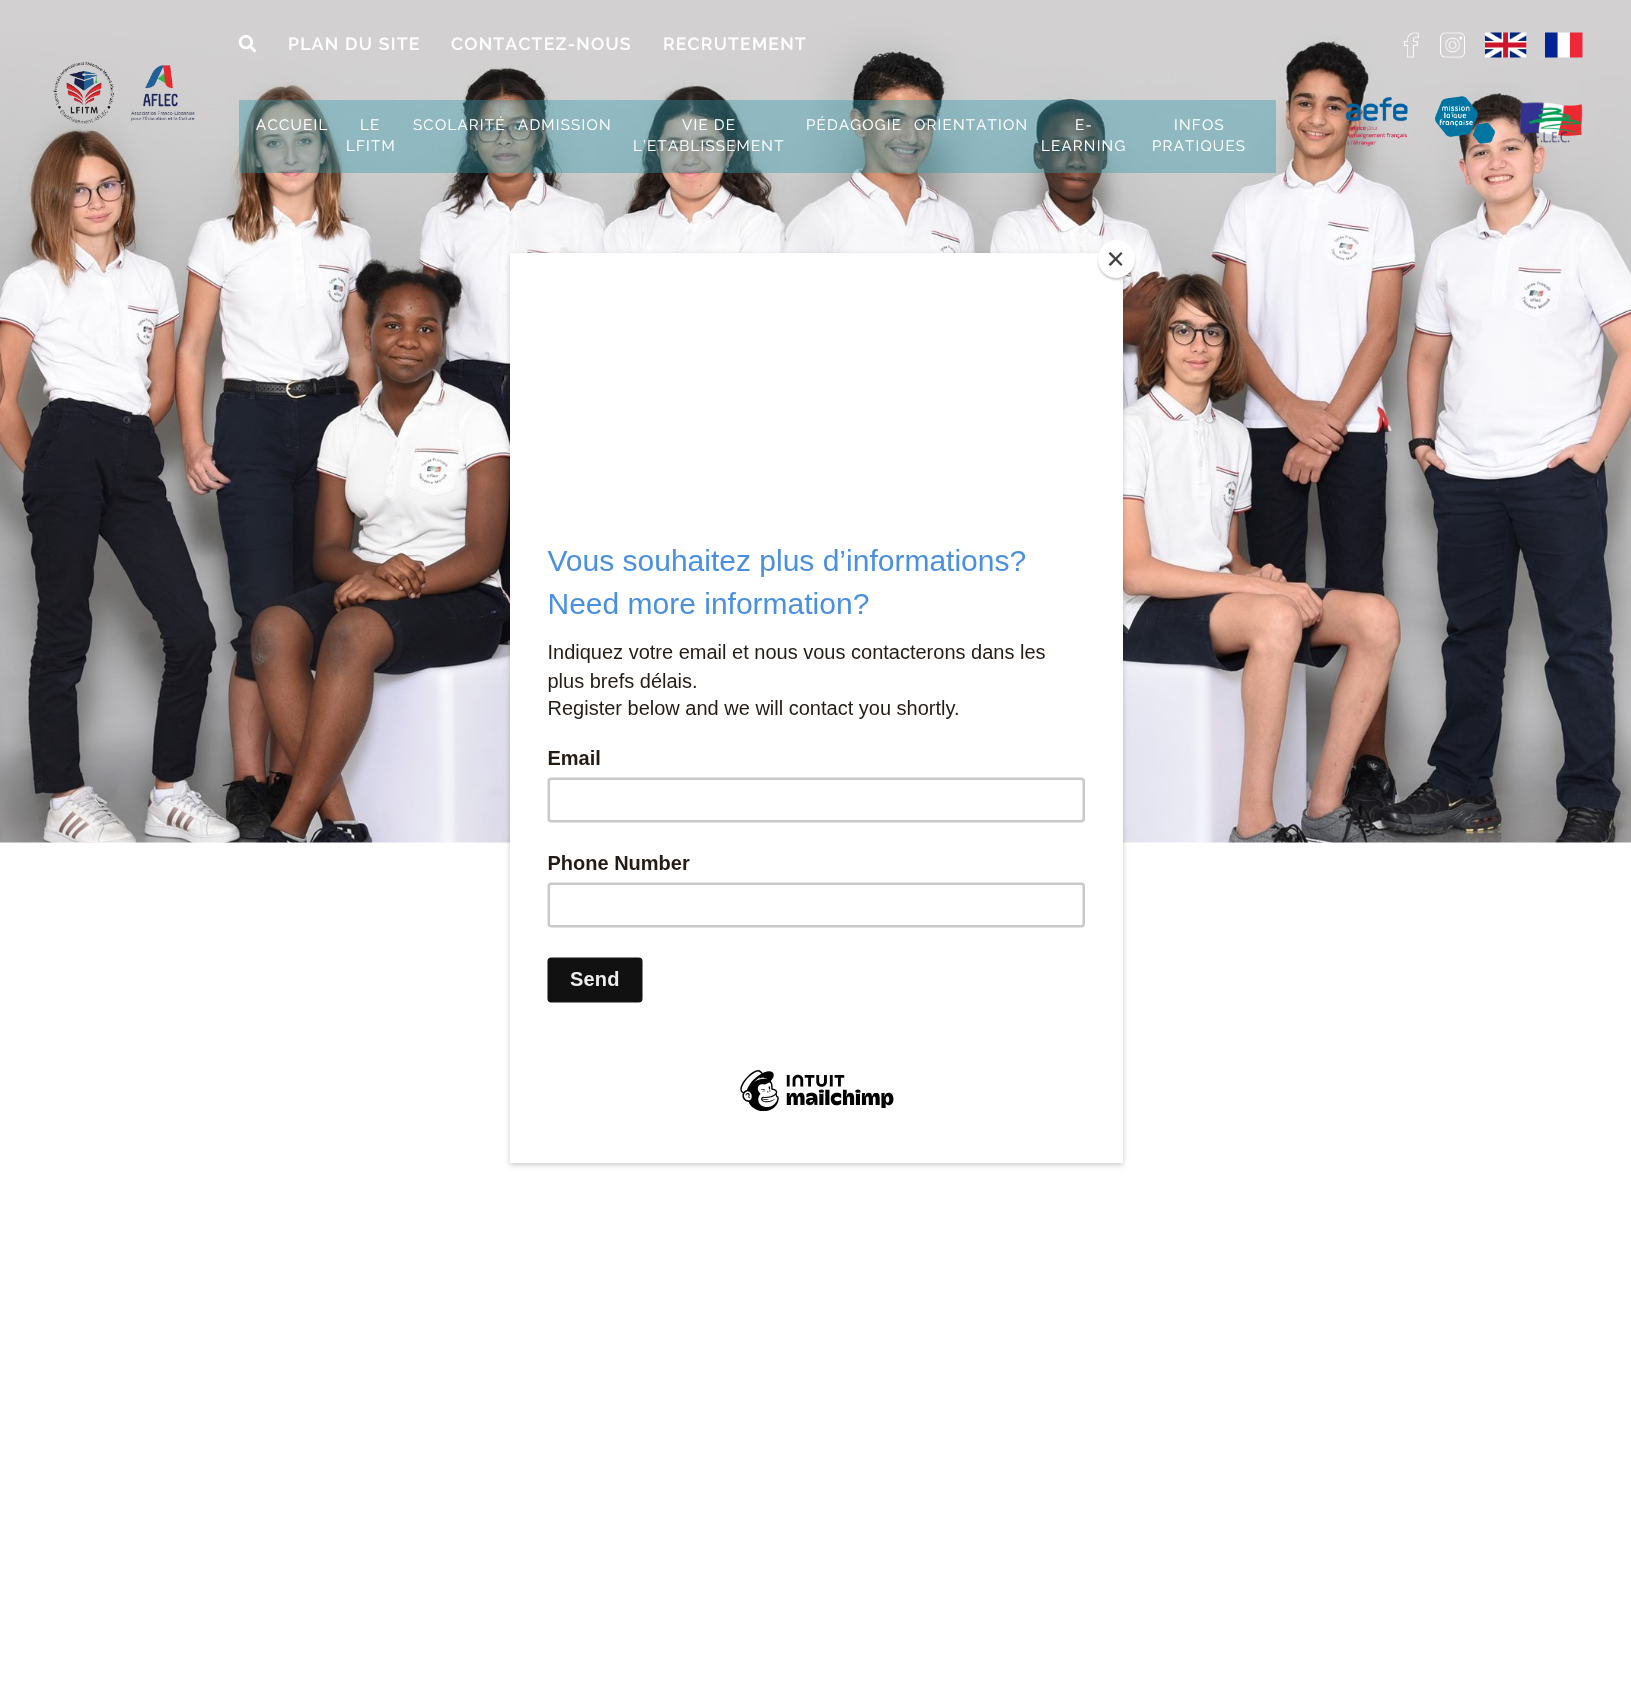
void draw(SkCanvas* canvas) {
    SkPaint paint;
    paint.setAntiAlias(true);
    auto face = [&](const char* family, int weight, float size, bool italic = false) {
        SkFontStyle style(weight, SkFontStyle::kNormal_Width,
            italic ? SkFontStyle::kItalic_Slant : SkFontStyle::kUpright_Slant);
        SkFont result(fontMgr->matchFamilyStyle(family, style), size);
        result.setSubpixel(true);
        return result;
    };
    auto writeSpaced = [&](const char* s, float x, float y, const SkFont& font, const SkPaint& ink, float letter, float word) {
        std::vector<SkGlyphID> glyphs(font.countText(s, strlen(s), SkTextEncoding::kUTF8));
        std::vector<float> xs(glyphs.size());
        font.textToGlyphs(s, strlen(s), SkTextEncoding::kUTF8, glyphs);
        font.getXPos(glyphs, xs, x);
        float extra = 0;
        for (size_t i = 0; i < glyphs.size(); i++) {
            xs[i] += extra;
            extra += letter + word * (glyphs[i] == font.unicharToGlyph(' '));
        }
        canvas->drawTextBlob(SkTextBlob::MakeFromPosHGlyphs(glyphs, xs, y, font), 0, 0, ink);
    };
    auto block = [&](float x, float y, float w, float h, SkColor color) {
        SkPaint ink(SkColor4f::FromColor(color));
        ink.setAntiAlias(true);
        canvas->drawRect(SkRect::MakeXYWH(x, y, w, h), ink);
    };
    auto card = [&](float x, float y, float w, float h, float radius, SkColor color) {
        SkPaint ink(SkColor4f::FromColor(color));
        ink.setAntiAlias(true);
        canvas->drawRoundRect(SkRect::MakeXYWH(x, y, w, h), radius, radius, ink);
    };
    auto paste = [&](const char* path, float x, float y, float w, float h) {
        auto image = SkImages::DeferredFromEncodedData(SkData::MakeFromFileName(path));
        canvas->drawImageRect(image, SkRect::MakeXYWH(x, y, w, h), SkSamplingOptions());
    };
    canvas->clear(SK_ColorWHITE);
    paste("pic1.png", 0, 0, 1631, 843);
    paste("pic2.png", 53, 61, 142, 63);
    paste("pic3.png", 238, 35, 19, 18);
    auto kFont1 = face("Raleway", 600, 17.5f);
    paint.setColor(SK_ColorWHITE);
    writeSpaced("PLAN DU SITE", 288, 50, kFont1, paint, 1.25f, 0);
    writeSpaced("CONTACTEZ-NOUS", 451, 50, kFont1, paint, 1.25f, 0);
    writeSpaced("RECRUTEMENT", 663, 50, kFont1, paint, 1.25f, 0);
    block(239, 100, 1037, 73, SkColorSetARGB(102, 47, 150, 169));
    auto kFont2 = face("Raleway", 400, 15);
    writeSpaced("ACCUEIL", 256, 130, kFont2, paint, 1.25f, 0);
    writeSpaced("LE", 360, 130, kFont2, paint, 1.25f, 0);
    writeSpaced("LFITM", 346, 151, kFont2, paint, 1.25f, 0);
    writeSpaced("SCOLARITÉ", 413, 130, kFont2, paint, 1.25f, 0);
    writeSpaced("ADMISSION", 518, 130, kFont2, paint, 1.25f, 0);
    writeSpaced("VIE DE", 682, 130, kFont2, paint, 1.25f, 0);
    writeSpaced("L’ETABLISSEMENT", 633, 151, kFont2, paint, 1.25f, 0);
    writeSpaced("PÉDAGOGIE", 806, 130, kFont2, paint, 1.25f, 0);
    writeSpaced("ORIENTATION", 914, 130, kFont2, paint, 1.25f, 0);
    writeSpaced("E-", 1075, 130, kFont2, paint, 1.25f, 0);
    writeSpaced("LEARNING", 1041, 151, kFont2, paint, 1.25f, 0);
    writeSpaced("INFOS", 1174, 130, kFont2, paint, 1.25f, 0);
    writeSpaced("PRATIQUES", 1152, 151, kFont2, paint, 1.25f, 0);
    paste("pic4.png", 1403, 32, 16, 26);
    paste("pic5.png", 1440, 32, 25, 26);
    paste("pic6.png", 1485, 32, 42, 26);
    paste("pic7.png", 1545, 32, 38, 26);
    paste("pic8.png", 1345, 97, 63, 50);
    paste("pic9.png", 1435, 96, 60, 48);
    paste("pic10.png", 1520, 102, 63, 41);
    paint.setColor(SkColorSetARGB(51, 0, 0, 0));
    paint.setMaskFilter(SkMaskFilter::MakeBlur(kNormal_SkBlurStyle, 2.5f));
    canvas->drawRect(SkRect::MakeXYWH(510, 255, 613, 910), paint);
    paint.setMaskFilter(nullptr);
    paste("pic11.png", 510, 253, 613, 910);
    paint.setMaskFilter(SkMaskFilter::MakeBlur(kNormal_SkBlurStyle, 1));
    canvas->drawRoundRect(SkRect::MakeXYWH(1098, 243, 37, 37), 18.5f, 18.5f, paint);
    paint.setMaskFilter(nullptr);
    card(1098, 240, 37, 38, 18.5f, SK_ColorWHITE);
    paint.setColor(SkColorSetRGB(65, 65, 65));
    canvas->drawPath(SkPathBuilder().moveTo(1121, 252).lineTo(1122.5f, 253.5f).lineTo(1110.5f, 266).lineTo(1108.5f, 264.5f).close().detach(), paint);
    canvas->drawPath(SkPathBuilder().moveTo(1108.5f, 253.5f).lineTo(1110.5f, 252).lineTo(1122.5f, 264.5f).lineTo(1121, 266).close().detach(), paint);
}
